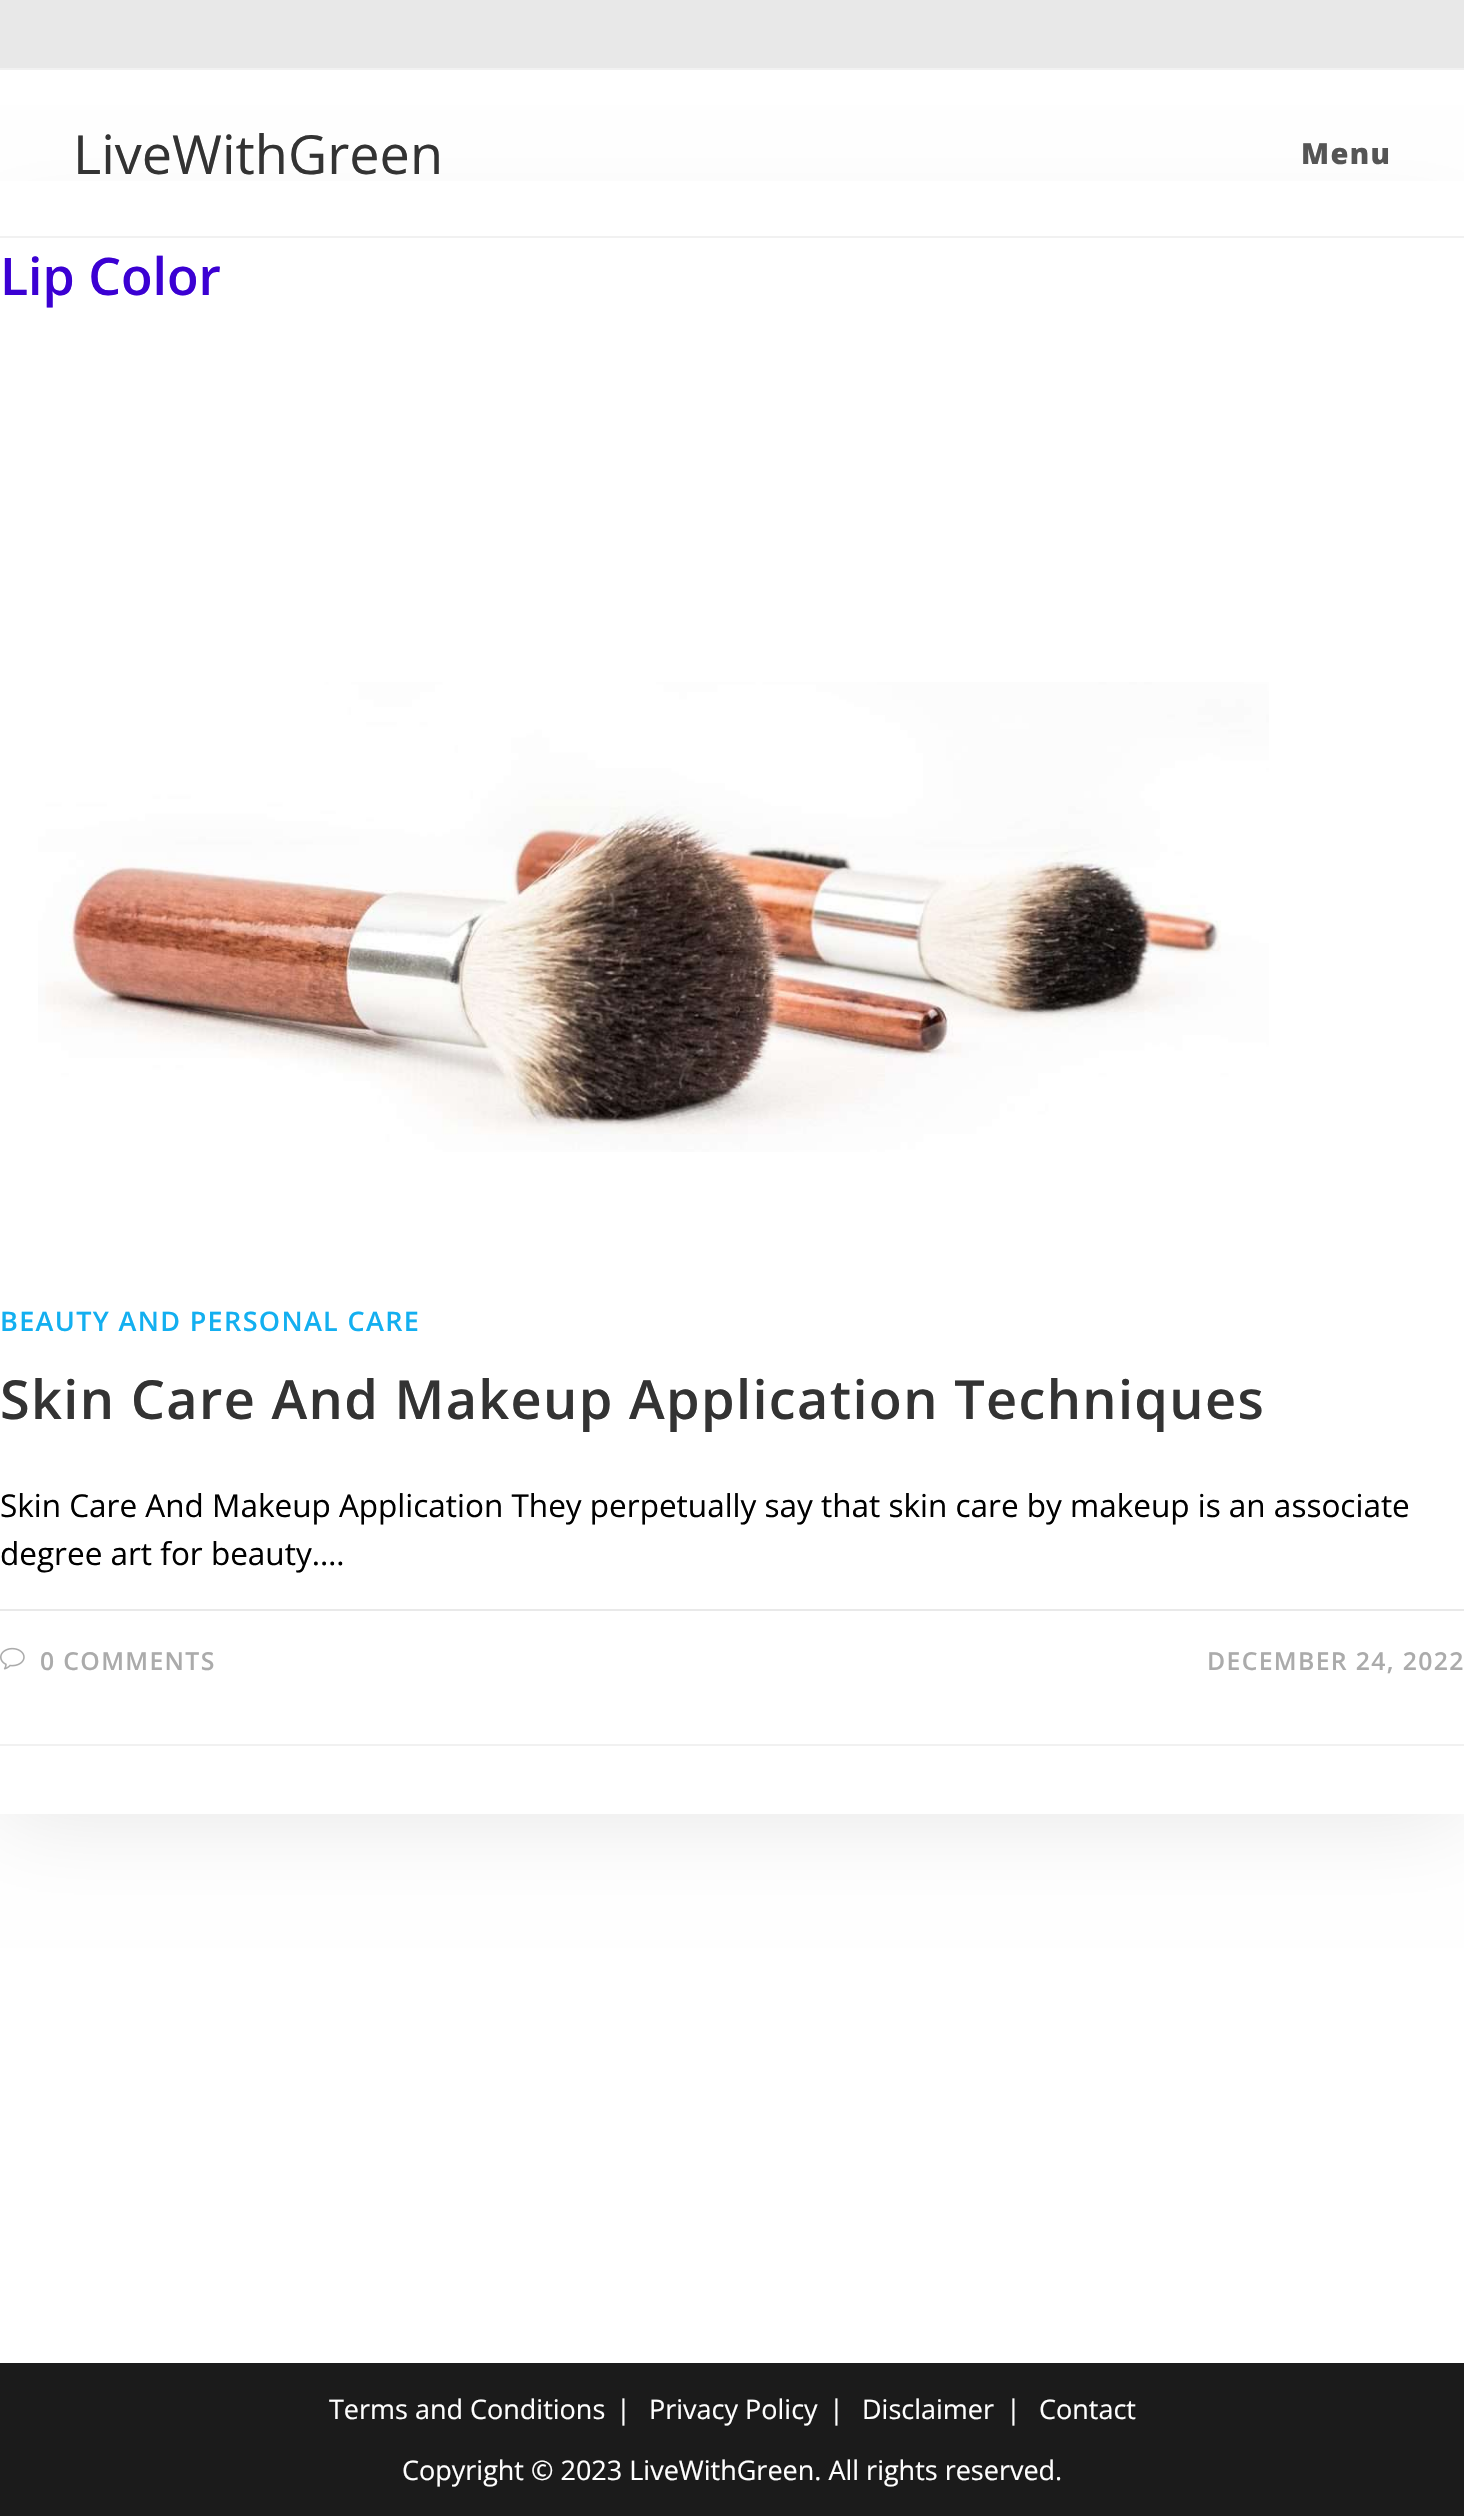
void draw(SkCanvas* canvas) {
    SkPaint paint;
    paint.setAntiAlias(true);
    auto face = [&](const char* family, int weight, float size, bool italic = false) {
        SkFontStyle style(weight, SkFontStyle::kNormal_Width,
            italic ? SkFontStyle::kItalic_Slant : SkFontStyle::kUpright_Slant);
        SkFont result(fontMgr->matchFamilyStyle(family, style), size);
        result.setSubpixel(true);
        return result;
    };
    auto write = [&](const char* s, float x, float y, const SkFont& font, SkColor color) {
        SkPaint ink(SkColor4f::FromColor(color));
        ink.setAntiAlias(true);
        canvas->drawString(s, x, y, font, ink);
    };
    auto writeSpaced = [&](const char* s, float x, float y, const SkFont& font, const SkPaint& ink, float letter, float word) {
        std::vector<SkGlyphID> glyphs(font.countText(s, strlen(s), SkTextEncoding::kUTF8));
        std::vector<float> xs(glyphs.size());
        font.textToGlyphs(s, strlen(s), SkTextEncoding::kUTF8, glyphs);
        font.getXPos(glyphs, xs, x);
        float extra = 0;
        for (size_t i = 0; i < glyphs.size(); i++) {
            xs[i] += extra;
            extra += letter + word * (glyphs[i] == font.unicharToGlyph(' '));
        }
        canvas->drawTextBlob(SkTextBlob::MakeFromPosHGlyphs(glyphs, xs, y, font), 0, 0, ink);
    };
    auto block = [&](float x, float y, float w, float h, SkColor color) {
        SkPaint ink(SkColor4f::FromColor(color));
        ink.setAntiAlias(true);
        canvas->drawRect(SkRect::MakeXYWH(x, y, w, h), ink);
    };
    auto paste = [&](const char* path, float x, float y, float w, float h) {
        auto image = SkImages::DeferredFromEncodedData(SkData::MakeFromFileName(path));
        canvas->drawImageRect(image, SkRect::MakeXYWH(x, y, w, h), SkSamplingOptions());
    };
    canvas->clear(SK_ColorWHITE);
    block(0, 0, 1464, 68, SkColorSetRGB(232, 232, 232));
    block(0, 68, 1464, 2, SkColorSetRGB(241, 241, 241));
    paint.setColor(SkColorSetARGB(26, 0, 0, 0));
    paint.setMaskFilter(SkMaskFilter::MakeBlur(kNormal_SkBlurStyle, 45));
    canvas->drawRect(SkRect::MakeXYWH(0, 239, 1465, 1575), paint);
    paint.setMaskFilter(nullptr);
    block(0, 181, 1464, 1633, SK_ColorWHITE);
    block(0, 236, 1464, 2, SkColorSetRGB(241, 241, 241));
    auto kFont1 = face("Open Sans", 400, 54);
    write("LiveWithGreen", 73, 174, kFont1, SkColorSetRGB(51, 51, 51));
    auto kFont2 = face("Open Sans", 800, 29);
    paint.setColor(SkColorSetRGB(85, 85, 85));
    writeSpaced("Menu", 1301, 164, kFont2, paint, 1.35f, 0);
    auto kFont3 = face("Open Sans", 600, 51.75f);
    write("Lip Color", 0, 295, kFont3, SkColorSetRGB(59, 0, 211));
    block(0, 1744, 1464, 2, SkColorSetRGB(241, 241, 241));
    paste("pic1.png", 38, 682, 1231, 470);
    auto kFont4 = face("Open Sans", 600, 27);
    paint.setColor(SkColorSetRGB(19, 175, 240));
    writeSpaced("BEAUTY AND PERSONAL CARE", 0, 1331, kFont4, paint, 1.35f, 0);
    auto kFont5 = face("Open Sans", 600, 54);
    paint.setColor(SkColorSetRGB(51, 51, 51));
    writeSpaced("Skin Care And Makeup Application Techniques", 0, 1419, kFont5, paint, 1.35f, 0);
    auto kFont6 = face("Open Sans", 400, 31.5f);
    write("Skin Care And Makeup Application They perpetually say that skin care by makeup is an associate", 0, 1517, kFont6, SK_ColorBLACK);
    write("degree art for beauty.…", 0, 1565, kFont6, SK_ColorBLACK);
    block(0, 1609, 1464, 2, SkColorSetRGB(233, 233, 233));
    paste("pic2.png", 0, 1647, 25, 23);
    auto kFont7 = face("Open Sans", 600, 24.75f);
    paint.setColor(SkColorSetRGB(171, 171, 171));
    writeSpaced("0 COMMENTS", 40, 1670, kFont7, paint, 1.35f, 0);
    writeSpaced("DECEMBER 24, 2022", 1207, 1670, kFont7, paint, 1.35f, 0);
    block(0, 2363, 1464, 153, SkColorSetRGB(27, 27, 27));
    auto kFont8 = face("Open Sans", 400, 27);
    write("Terms and Conditions", 329, 2419, kFont8, SK_ColorWHITE);
    write("|", 616, 2419, kFont8, SK_ColorWHITE);
    write("Privacy Policy", 649, 2419, kFont8, SK_ColorWHITE);
    write("|", 829, 2419, kFont8, SK_ColorWHITE);
    write("Disclaimer", 862, 2419, kFont8, SK_ColorWHITE);
    write("|", 1006, 2419, kFont8, SK_ColorWHITE);
    write("Contact", 1039, 2419, kFont8, SK_ColorWHITE);
    write("Copyright © 2023 LiveWithGreen. All rights reserved.", 402, 2480, kFont8, SK_ColorWHITE);
}
